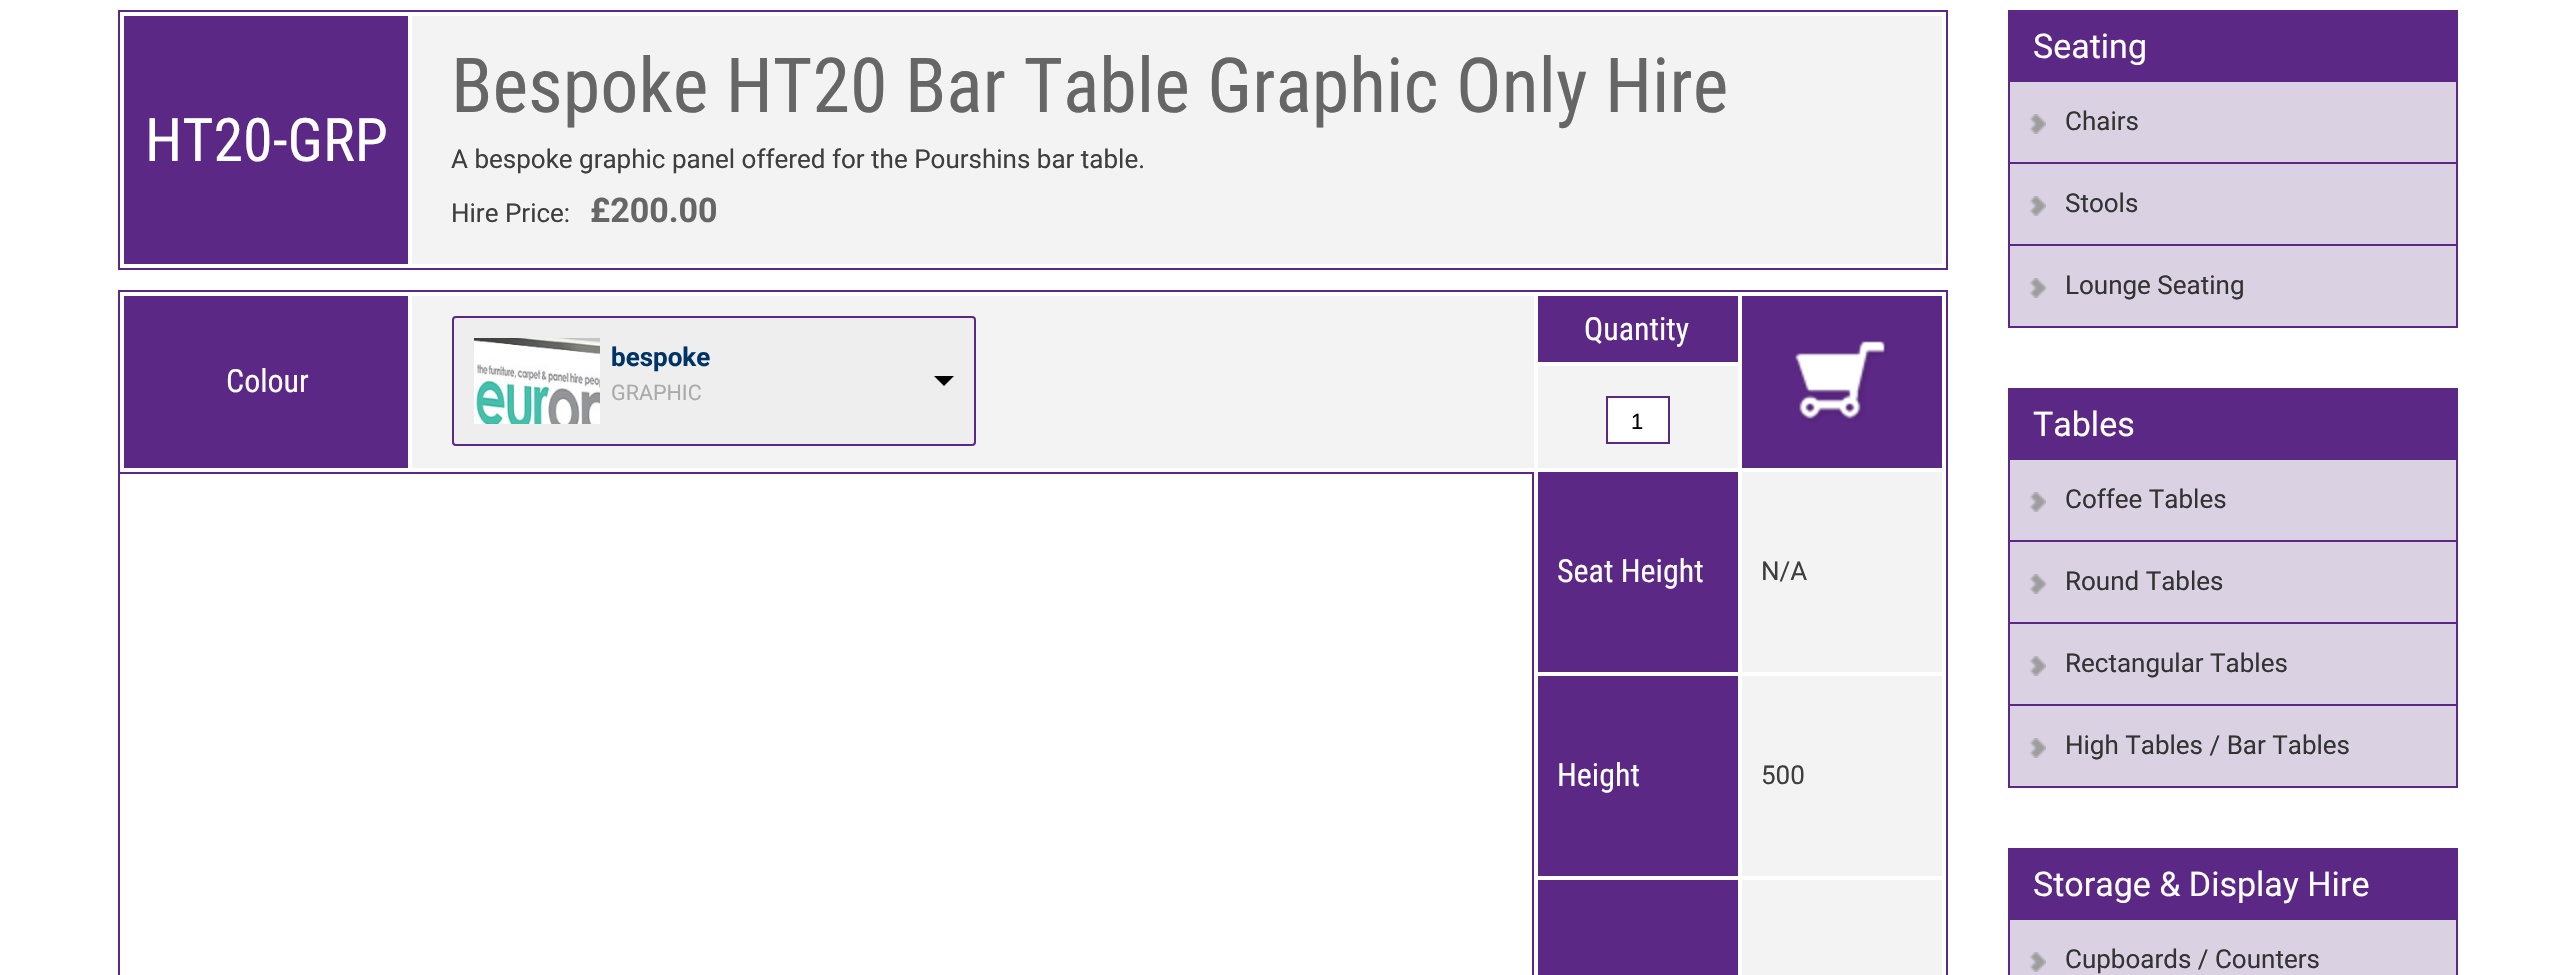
void draw(SkCanvas* canvas) {
    SkPaint paint;
    paint.setAntiAlias(true);
    auto face = [&](const char* family, int weight, float size, bool italic = false) {
        SkFontStyle style(weight, SkFontStyle::kNormal_Width,
            italic ? SkFontStyle::kItalic_Slant : SkFontStyle::kUpright_Slant);
        SkFont result(fontMgr->matchFamilyStyle(family, style), size);
        result.setSubpixel(true);
        return result;
    };
    auto write = [&](const char* s, float x, float y, const SkFont& font, SkColor color) {
        SkPaint ink(SkColor4f::FromColor(color));
        ink.setAntiAlias(true);
        canvas->drawString(s, x, y, font, ink);
    };
    auto block = [&](float x, float y, float w, float h, SkColor color) {
        SkPaint ink(SkColor4f::FromColor(color));
        ink.setAntiAlias(true);
        canvas->drawRect(SkRect::MakeXYWH(x, y, w, h), ink);
    };
    auto paste = [&](const char* path, float x, float y, float w, float h) {
        auto image = SkImages::DeferredFromEncodedData(SkData::MakeFromFileName(path));
        canvas->drawImageRect(image, SkRect::MakeXYWH(x, y, w, h), SkSamplingOptions());
    };
    canvas->clear(SK_ColorWHITE);
    paint.setStyle(SkPaint::kStroke_Style);
    paint.setStrokeWidth(2);
    paint.setColor(SkColorSetRGB(92, 40, 134));
    canvas->drawRect(SkRect::MakeXYWH(119, 11, 1828, 258), paint);
    block(124, 16, 284, 248, SkColorSetRGB(92, 40, 134));
    auto kFont1 = face("Roboto Condensed", 400, 60);
    write("HT20-GRP", 145, 161, kFont1, SK_ColorWHITE);
    block(412, 16, 1530, 248, SkColorSetRGB(243, 243, 243));
    auto kFont2 = face("Roboto Condensed", 400, 76);
    write("Bespoke HT20 Bar Table Graphic Only Hire", 451, 112, kFont2, SkColorSetRGB(102, 102, 102));
    auto kFont3 = face("Roboto", 400, 26);
    write("A bespoke graphic panel offered for the Pourshins bar table.", 451, 168, kFont3, SkColorSetRGB(62, 62, 62));
    write("Hire Price:", 451, 222, kFont3, SkColorSetRGB(62, 62, 62));
    auto kFont4 = face("Roboto", 700, 34);
    write("£200.00", 590, 222, kFont4, SkColorSetRGB(102, 102, 102));
    canvas->drawRect(SkRect::MakeXYWH(119, 291, 1828, 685), paint);
    block(124, 296, 284, 172, SkColorSetRGB(92, 40, 134));
    auto kFont5 = face("Roboto Condensed", 400, 32);
    write("Colour", 226, 392, kFont5, SK_ColorWHITE);
    block(412, 296, 1122, 172, SkColorSetRGB(243, 243, 243));
    paint.setStyle(SkPaint::kFill_Style);
    paint.setColor(SkColorSetRGB(238, 238, 238));
    canvas->drawRoundRect(SkRect::MakeXYWH(453, 317, 522, 128), 3, 3, paint);
    paint.setStyle(SkPaint::kStroke_Style);
    paint.setColor(SkColorSetRGB(92, 40, 134));
    canvas->drawRoundRect(SkRect::MakeXYWH(453, 317, 522, 128), 3, 3, paint);
    paste("pic1.png", 474, 338, 126, 86);
    auto kFont6 = face("Roboto", 700, 26);
    write("bespoke", 611, 366, kFont6, SkColorSetRGB(0, 51, 102));
    auto kFont7 = face("Roboto", 400, 21.5f);
    write("GRAPHIC", 611, 400, kFont7, SkColorSetRGB(170, 170, 170));
    paint.setStyle(SkPaint::kFill_Style);
    paint.setColor(SK_ColorBLACK);
    canvas->drawPath(SkPathBuilder().moveTo(934, 376).lineTo(954, 376).lineTo(944, 386).close().detach(), paint);
    block(1538, 366, 200, 102, SkColorSetRGB(243, 243, 243));
    block(1538, 296, 200, 66, SkColorSetRGB(92, 40, 134));
    write("Quantity", 1584, 340, kFont5, SK_ColorWHITE);
    paint.setColor(SK_ColorWHITE);
    canvas->drawRect(SkRect::MakeXYWH(1607, 397, 62, 46), paint);
    paint.setStyle(SkPaint::kStroke_Style);
    paint.setColor(SkColorSetRGB(92, 40, 134));
    canvas->drawRect(SkRect::MakeXYWH(1607, 397, 62, 46), paint);
    auto kFont8 = face("Liberation Sans", 400, 22);
    write("1", 1631, 429, kFont8, SK_ColorBLACK);
    block(1742, 296, 200, 172, SkColorSetRGB(92, 40, 134));
    paste("pic2.png", 1795, 340, 94, 83);
    block(120, 472, 1414, 2, SkColorSetRGB(92, 40, 134));
    block(1532, 472, 2, 503, SkColorSetRGB(92, 40, 134));
    block(1538, 472, 200, 200, SkColorSetRGB(92, 40, 134));
    write("Seat Height", 1557, 582, kFont5, SK_ColorWHITE);
    block(1742, 472, 200, 200, SkColorSetRGB(243, 243, 243));
    write("N/A", 1761, 580, kFont3, SkColorSetRGB(62, 62, 62));
    block(1538, 676, 200, 200, SkColorSetRGB(92, 40, 134));
    write("Height", 1557, 786, kFont5, SK_ColorWHITE);
    block(1742, 676, 200, 200, SkColorSetRGB(243, 243, 243));
    write("500", 1761, 784, kFont3, SkColorSetRGB(62, 62, 62));
    block(1538, 880, 200, 95, SkColorSetRGB(92, 40, 134));
    block(1742, 880, 200, 95, SkColorSetRGB(243, 243, 243));
    block(2456, 10, 2, 318, SkColorSetRGB(92, 40, 134));
    block(2008, 80, 450, 2, SkColorSetRGB(92, 40, 134));
    block(2008, 10, 2, 72, SkColorSetRGB(92, 40, 134));
    block(2010, 10, 446, 70, SkColorSetRGB(92, 40, 134));
    auto kFont9 = face("Roboto", 400, 34);
    write("Seating", 2033, 58, kFont9, SK_ColorWHITE);
    block(2010, 82, 446, 80, SkColorSetRGB(218, 210, 227));
    block(2008, 162, 450, 2, SkColorSetRGB(92, 40, 134));
    block(2008, 82, 2, 82, SkColorSetRGB(92, 40, 134));
    paste("pic3.png", 2030, 114, 16, 20);
    write("Chairs", 2065, 130, kFont3, SkColorSetRGB(51, 51, 51));
    block(2010, 164, 446, 80, SkColorSetRGB(218, 210, 227));
    block(2008, 244, 450, 2, SkColorSetRGB(92, 40, 134));
    block(2008, 164, 2, 82, SkColorSetRGB(92, 40, 134));
    paste("pic3.png", 2030, 196, 16, 20);
    write("Stools", 2065, 212, kFont3, SkColorSetRGB(51, 51, 51));
    block(2010, 246, 446, 80, SkColorSetRGB(218, 210, 227));
    block(2008, 326, 450, 2, SkColorSetRGB(92, 40, 134));
    block(2008, 246, 2, 82, SkColorSetRGB(92, 40, 134));
    paste("pic3.png", 2030, 278, 16, 20);
    write("Lounge Seating", 2065, 294, kFont3, SkColorSetRGB(51, 51, 51));
    block(2456, 388, 2, 400, SkColorSetRGB(92, 40, 134));
    block(2008, 458, 450, 2, SkColorSetRGB(92, 40, 134));
    block(2008, 388, 2, 72, SkColorSetRGB(92, 40, 134));
    block(2010, 388, 446, 70, SkColorSetRGB(92, 40, 134));
    write("Tables", 2033, 436, kFont9, SK_ColorWHITE);
    block(2010, 460, 446, 80, SkColorSetRGB(218, 210, 227));
    block(2008, 540, 450, 2, SkColorSetRGB(92, 40, 134));
    block(2008, 460, 2, 82, SkColorSetRGB(92, 40, 134));
    paste("pic3.png", 2030, 492, 16, 20);
    write("Coffee Tables", 2065, 508, kFont3, SkColorSetRGB(51, 51, 51));
    block(2010, 542, 446, 80, SkColorSetRGB(218, 210, 227));
    block(2008, 622, 450, 2, SkColorSetRGB(92, 40, 134));
    block(2008, 542, 2, 82, SkColorSetRGB(92, 40, 134));
    paste("pic3.png", 2030, 574, 16, 20);
    write("Round Tables", 2065, 590, kFont3, SkColorSetRGB(51, 51, 51));
    block(2010, 624, 446, 80, SkColorSetRGB(218, 210, 227));
    block(2008, 704, 450, 2, SkColorSetRGB(92, 40, 134));
    block(2008, 624, 2, 82, SkColorSetRGB(92, 40, 134));
    paste("pic3.png", 2030, 656, 16, 20);
    write("Rectangular Tables", 2065, 672, kFont3, SkColorSetRGB(51, 51, 51));
    block(2010, 706, 446, 80, SkColorSetRGB(218, 210, 227));
    block(2008, 786, 450, 2, SkColorSetRGB(92, 40, 134));
    block(2008, 706, 2, 82, SkColorSetRGB(92, 40, 134));
    paste("pic3.png", 2030, 738, 16, 20);
    write("High Tables / Bar Tables", 2065, 754, kFont3, SkColorSetRGB(51, 51, 51));
    block(2456, 848, 2, 127, SkColorSetRGB(92, 40, 134));
    block(2008, 918, 450, 2, SkColorSetRGB(92, 40, 134));
    block(2008, 848, 2, 127, SkColorSetRGB(92, 40, 134));
    block(2010, 848, 446, 70, SkColorSetRGB(92, 40, 134));
    write("Storage & Display Hire", 2033, 896, kFont9, SK_ColorWHITE);
    block(2010, 920, 446, 55, SkColorSetRGB(218, 210, 227));
    paste("pic3.png", 2030, 952, 16, 20);
    write("Cupboards / Counters", 2065, 968, kFont3, SkColorSetRGB(51, 51, 51));
}
